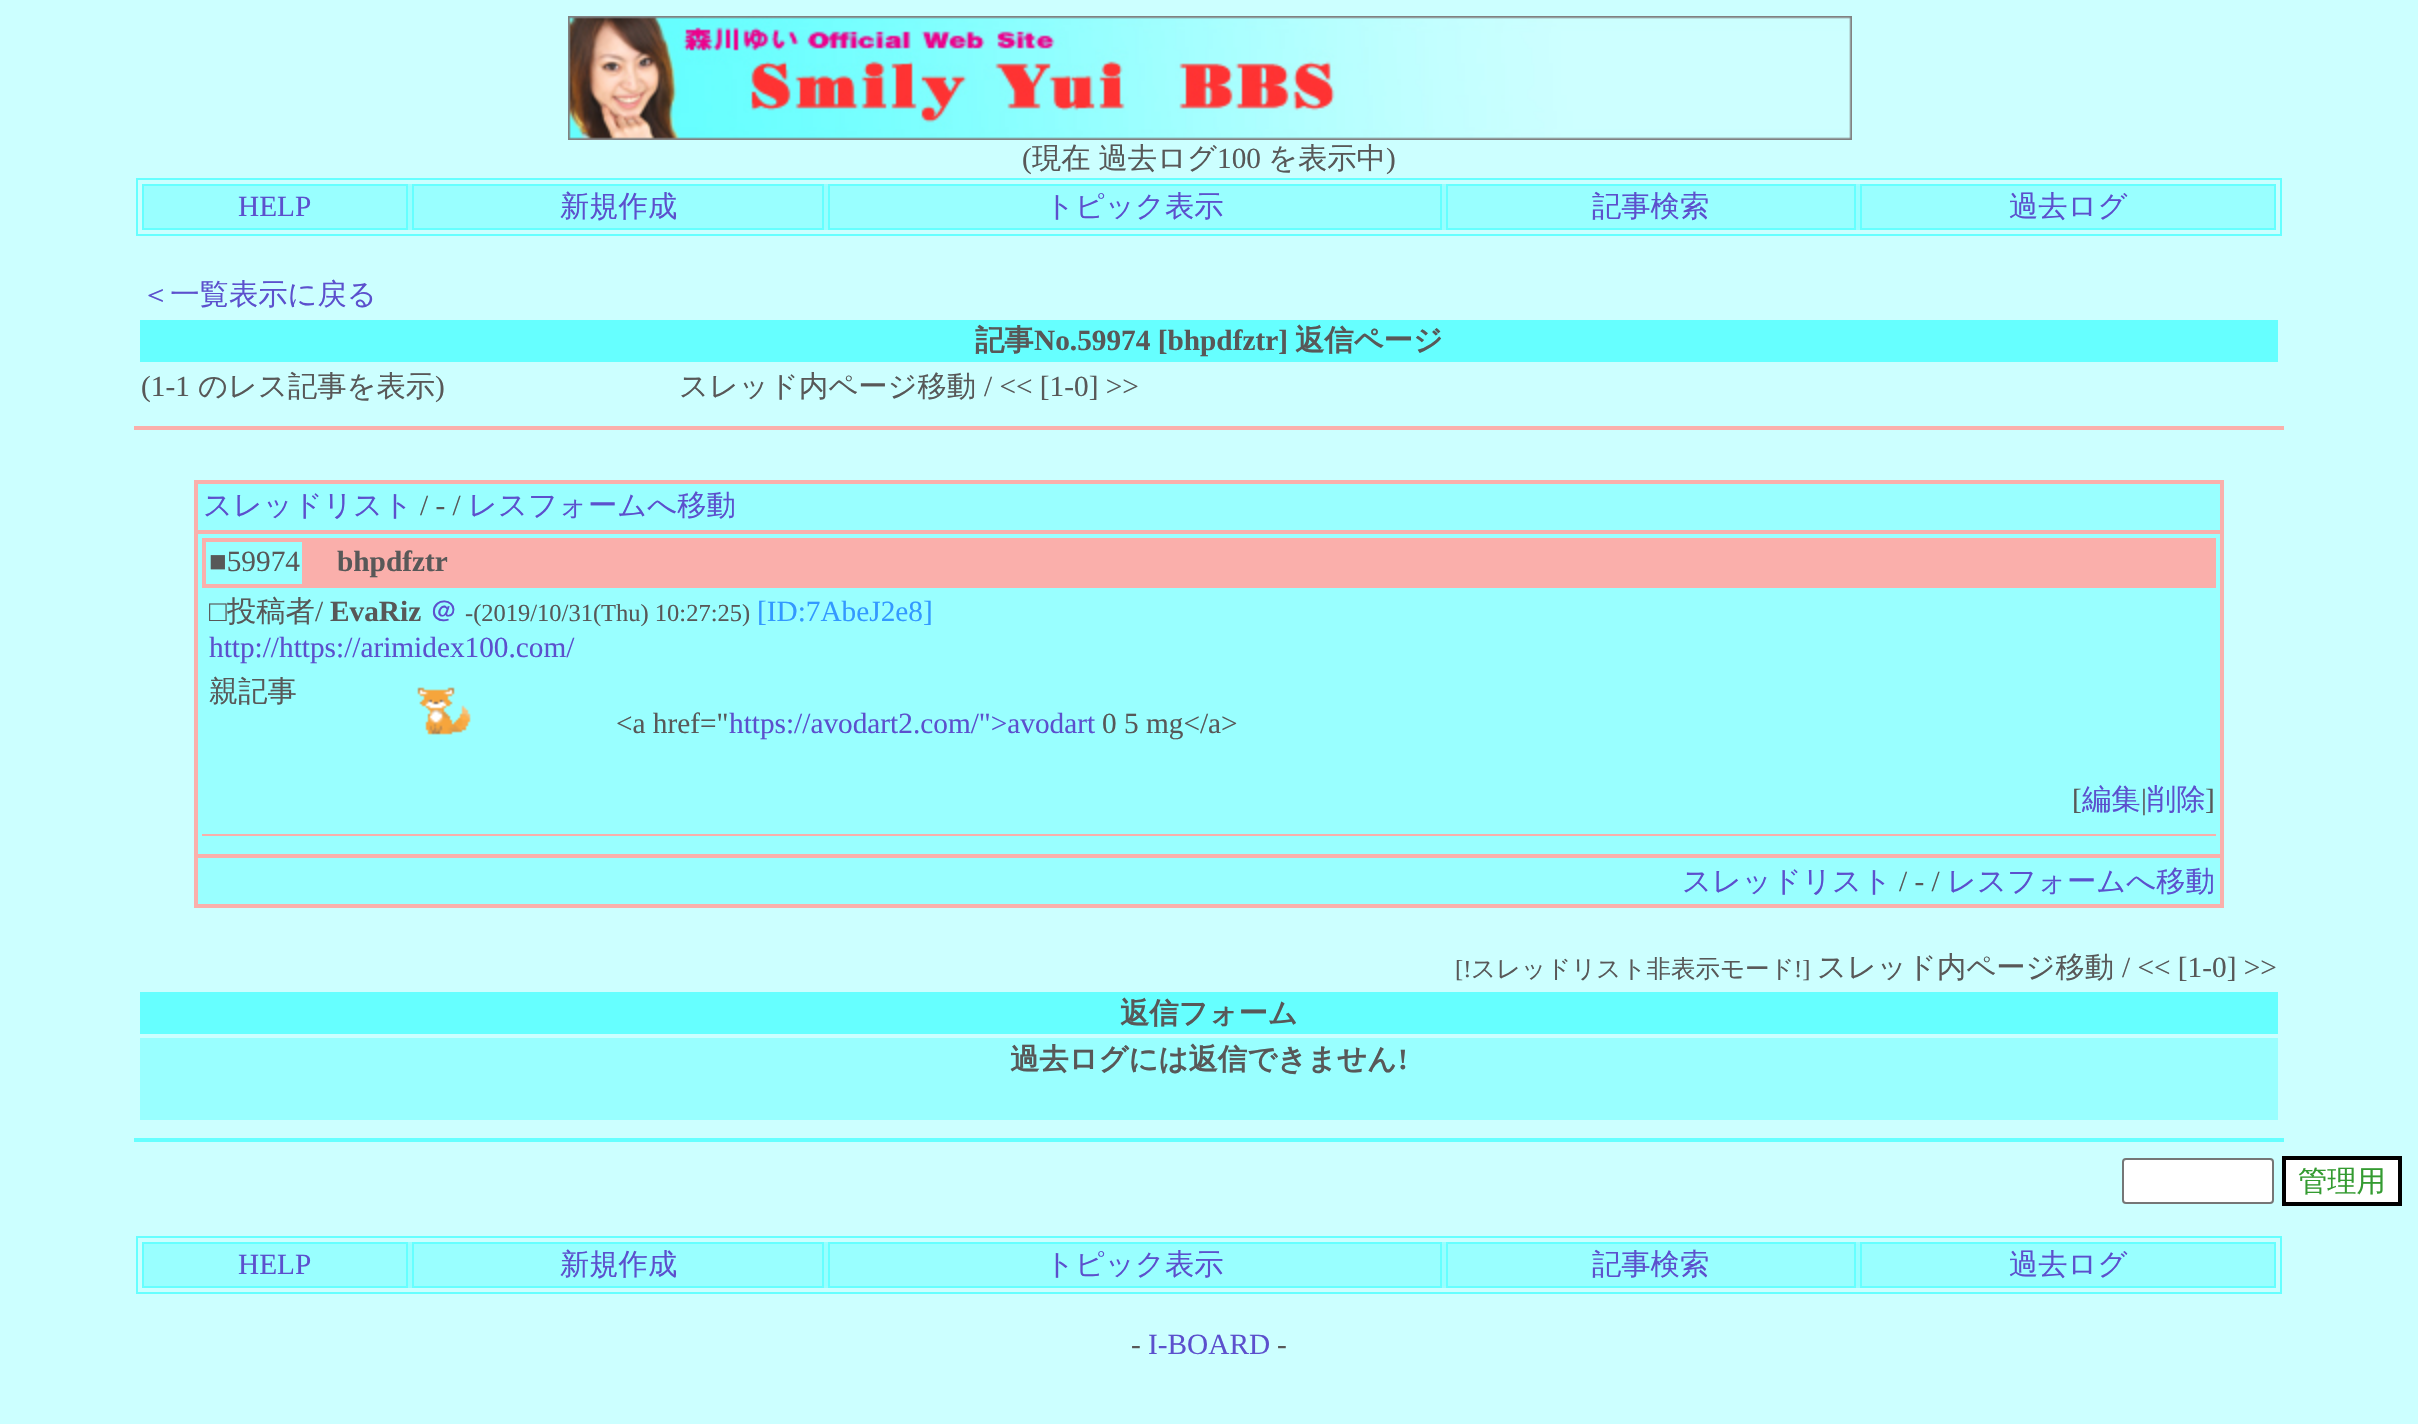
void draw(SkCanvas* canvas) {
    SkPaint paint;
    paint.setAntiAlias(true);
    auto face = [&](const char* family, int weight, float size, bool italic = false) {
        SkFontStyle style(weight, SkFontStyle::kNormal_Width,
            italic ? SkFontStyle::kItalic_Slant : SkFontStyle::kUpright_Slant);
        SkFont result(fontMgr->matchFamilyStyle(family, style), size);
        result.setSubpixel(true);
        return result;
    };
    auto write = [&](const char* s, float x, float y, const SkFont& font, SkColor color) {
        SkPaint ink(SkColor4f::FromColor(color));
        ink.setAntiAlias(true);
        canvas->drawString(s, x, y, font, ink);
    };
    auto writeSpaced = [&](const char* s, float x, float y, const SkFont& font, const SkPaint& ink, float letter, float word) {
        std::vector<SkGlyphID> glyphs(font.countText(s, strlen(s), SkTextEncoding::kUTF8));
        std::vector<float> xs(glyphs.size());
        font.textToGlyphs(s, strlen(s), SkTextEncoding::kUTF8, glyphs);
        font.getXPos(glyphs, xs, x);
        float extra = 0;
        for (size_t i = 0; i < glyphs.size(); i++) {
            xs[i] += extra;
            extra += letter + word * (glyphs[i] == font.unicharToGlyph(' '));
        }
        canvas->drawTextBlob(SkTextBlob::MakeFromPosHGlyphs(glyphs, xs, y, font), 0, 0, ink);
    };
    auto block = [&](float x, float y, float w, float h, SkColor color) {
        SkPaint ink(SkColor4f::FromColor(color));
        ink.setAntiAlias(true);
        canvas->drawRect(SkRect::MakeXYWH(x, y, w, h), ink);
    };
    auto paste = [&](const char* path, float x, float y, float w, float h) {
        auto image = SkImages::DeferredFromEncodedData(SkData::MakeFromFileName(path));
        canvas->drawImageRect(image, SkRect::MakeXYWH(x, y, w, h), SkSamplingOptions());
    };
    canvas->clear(SkColorSetRGB(204, 255, 255));
    paste("pic1.png", 568, 16, 1284, 124);
    auto kFont1 = face("Liberation Serif", 400, 29.3f);
    write("(", 1022, 168, kFont1, SkColorSetRGB(88, 88, 88));
    auto kFont2 = face("WenQuanYi Zen Hei", 500, 29.3f);
    paint.setColor(SkColorSetRGB(88, 88, 88));
    writeSpaced("現在 過去ログ", 1032, 168, kFont2, paint, 0, -1);
    write("100", 1217, 168, kFont1, SkColorSetRGB(88, 88, 88));
    write("を表示中", 1268, 168, kFont2, SkColorSetRGB(88, 88, 88));
    write(")", 1386, 168, kFont1, SkColorSetRGB(88, 88, 88));
    paint.setStyle(SkPaint::kStroke_Style);
    paint.setStrokeWidth(2);
    paint.setColor(SkColorSetRGB(102, 255, 255));
    canvas->drawRect(SkRect::MakeXYWH(137, 179, 2144, 56), paint);
    block(144, 184, 2130, 46, SkColorSetRGB(153, 255, 255));
    canvas->drawRect(SkRect::MakeXYWH(143, 185, 264, 44), paint);
    write("HELP", 238, 216, kFont1, SkColorSetRGB(92, 80, 205));
    canvas->drawRect(SkRect::MakeXYWH(413, 185, 410, 44), paint);
    write("新規作成", 560, 216, kFont2, SkColorSetRGB(92, 80, 205));
    canvas->drawRect(SkRect::MakeXYWH(829, 185, 612, 44), paint);
    write("トピック表示", 1045, 216, kFont2, SkColorSetRGB(92, 80, 205));
    canvas->drawRect(SkRect::MakeXYWH(1447, 185, 408, 44), paint);
    write("記事検索", 1592, 216, kFont2, SkColorSetRGB(92, 80, 205));
    canvas->drawRect(SkRect::MakeXYWH(1861, 185, 414, 44), paint);
    write("過去ログ", 2009, 216, kFont2, SkColorSetRGB(92, 80, 205));
    write("＜一覧表示に戻る", 141, 304, kFont2, SkColorSetRGB(92, 80, 205));
    block(140, 320, 2138, 42, SkColorSetRGB(102, 255, 255));
    auto kFont3 = face("WenQuanYi Zen Hei", 700, 29.3f);
    write("記事", 975, 350, kFont3, SkColorSetRGB(88, 88, 88));
    auto kFont4 = face("Liberation Serif", 700, 29.3f);
    write("No.59974 [bhpdfztr]", 1034, 350, kFont4, SkColorSetRGB(88, 88, 88));
    write("返信ページ", 1295, 350, kFont3, SkColorSetRGB(88, 88, 88));
    write("(1-1", 141, 396, kFont1, SkColorSetRGB(88, 88, 88));
    write("のレス記事を表示", 198, 396, kFont2, SkColorSetRGB(88, 88, 88));
    write(")", 435, 396, kFont1, SkColorSetRGB(88, 88, 88));
    write("スレッド内ページ移動", 679, 396, kFont2, SkColorSetRGB(88, 88, 88));
    write("/ << [1-0] >>", 984, 396, kFont1, SkColorSetRGB(88, 88, 88));
    block(134, 426, 2150, 4, SkColorSetRGB(250, 175, 171));
    block(198, 484, 2022, 420, SkColorSetRGB(153, 255, 255));
    paint.setColor(SkColorSetRGB(250, 175, 171));
    canvas->drawRect(SkRect::MakeXYWH(195, 481, 2028, 426), paint);
    canvas->drawRect(SkRect::MakeXYWH(197, 483, 2024, 48), paint);
    write("スレッドリスト", 203, 515, kFont2, SkColorSetRGB(92, 80, 205));
    write("/ - /", 420, 515, kFont1, SkColorSetRGB(88, 88, 88));
    write("レスフォームへ移動", 468, 515, kFont2, SkColorSetRGB(92, 80, 205));
    canvas->drawRect(SkRect::MakeXYWH(197, 533, 2024, 322), paint);
    canvas->drawRect(SkRect::MakeXYWH(203, 539, 2012, 48), paint);
    canvas->drawRect(SkRect::MakeXYWH(205, 541, 98, 44), paint);
    write("■59974", 209, 571, kFont1, SkColorSetRGB(88, 88, 88));
    block(304, 540, 1910, 46, SkColorSetRGB(250, 175, 171));
    write("bhpdfztr", 337, 571, kFont4, SkColorSetRGB(88, 88, 88));
    write("□", 209, 621, kFont1, SkColorSetRGB(88, 88, 88));
    write("投稿者", 227, 621, kFont2, SkColorSetRGB(88, 88, 88));
    write("/", 315, 621, kFont1, SkColorSetRGB(88, 88, 88));
    write("EvaRiz", 330, 621, kFont4, SkColorSetRGB(88, 88, 88));
    write("＠", 429, 621, kFont2, SkColorSetRGB(92, 80, 205));
    auto kFont5 = face("Liberation Serif", 400, 24.5f);
    write("-(2019/10/31(Thu) 10:27:25)", 465, 621, kFont5, SkColorSetRGB(88, 88, 88));
    write("[ID:7AbeJ2e8]", 757, 621, kFont1, SkColorSetRGB(51, 153, 255));
    write("http://https://arimidex100.com/", 209, 657, kFont1, SkColorSetRGB(92, 80, 205));
    write("親記事", 209, 701, kFont2, SkColorSetRGB(88, 88, 88));
    paste("pic2.png", 417, 687, 54, 48);
    write("<a href=\"", 616, 733, kFont1, SkColorSetRGB(88, 88, 88));
    write("https://avodart2.com/\">avodart", 729, 733, kFont1, SkColorSetRGB(92, 80, 205));
    write("0 5 mg</a>", 1102, 733, kFont1, SkColorSetRGB(88, 88, 88));
    write("[", 2072, 809, kFont1, SkColorSetRGB(88, 88, 88));
    write("編集", 2082, 809, kFont2, SkColorSetRGB(92, 80, 205));
    write("|", 2141, 809, kFont1, SkColorSetRGB(88, 88, 88));
    write("削除", 2147, 809, kFont2, SkColorSetRGB(92, 80, 205));
    write("]", 2205, 809, kFont1, SkColorSetRGB(88, 88, 88));
    block(202, 834, 2014, 2, SkColorSetRGB(250, 175, 171));
    canvas->drawRect(SkRect::MakeXYWH(197, 857, 2024, 48), paint);
    write("スレッドリスト", 1682, 891, kFont2, SkColorSetRGB(92, 80, 205));
    write("/ - /", 1899, 891, kFont1, SkColorSetRGB(88, 88, 88));
    write("レスフォームへ移動", 1947, 891, kFont2, SkColorSetRGB(92, 80, 205));
    write("[!", 1455, 977, kFont5, SkColorSetRGB(88, 88, 88));
    auto kFont6 = face("WenQuanYi Zen Hei", 500, 24.5f);
    write("スレッドリスト非表示モード", 1471, 977, kFont6, SkColorSetRGB(88, 88, 88));
    write("!]", 1794, 977, kFont5, SkColorSetRGB(88, 88, 88));
    write("スレッド内ページ移動", 1817, 977, kFont2, SkColorSetRGB(88, 88, 88));
    write("/ << [1-0] >>", 2122, 977, kFont1, SkColorSetRGB(88, 88, 88));
    block(140, 992, 2138, 42, SkColorSetRGB(102, 255, 255));
    write("返信フォーム", 1120, 1023, kFont3, SkColorSetRGB(88, 88, 88));
    block(140, 1038, 2138, 82, SkColorSetRGB(153, 255, 255));
    write("過去ログには返信できません", 1010, 1069, kFont3, SkColorSetRGB(88, 88, 88));
    write("!", 1398, 1069, kFont4, SkColorSetRGB(88, 88, 88));
    block(134, 1138, 2150, 4, SkColorSetRGB(102, 255, 255));
    paint.setStyle(SkPaint::kFill_Style);
    paint.setColor(SK_ColorWHITE);
    canvas->drawRoundRect(SkRect::MakeXYWH(2123, 1159, 150, 44), 3, 3, paint);
    paint.setStyle(SkPaint::kStroke_Style);
    paint.setColor(SkColorSetRGB(118, 118, 118));
    canvas->drawRoundRect(SkRect::MakeXYWH(2123, 1159, 150, 44), 3, 3, paint);
    paint.setStyle(SkPaint::kFill_Style);
    paint.setColor(SK_ColorWHITE);
    canvas->drawRect(SkRect::MakeXYWH(2284, 1158, 116, 46), paint);
    paint.setStyle(SkPaint::kStroke_Style);
    paint.setStrokeWidth(4);
    paint.setColor(SK_ColorBLACK);
    canvas->drawRect(SkRect::MakeXYWH(2284, 1158, 116, 46), paint);
    write("管理用", 2298, 1191, kFont2, SkColorSetRGB(52, 155, 49));
    paint.setStrokeWidth(2);
    paint.setColor(SkColorSetRGB(102, 255, 255));
    canvas->drawRect(SkRect::MakeXYWH(137, 1237, 2144, 56), paint);
    block(144, 1242, 2130, 46, SkColorSetRGB(153, 255, 255));
    canvas->drawRect(SkRect::MakeXYWH(143, 1243, 264, 44), paint);
    write("HELP", 238, 1274, kFont1, SkColorSetRGB(92, 80, 205));
    canvas->drawRect(SkRect::MakeXYWH(413, 1243, 410, 44), paint);
    write("新規作成", 560, 1274, kFont2, SkColorSetRGB(92, 80, 205));
    canvas->drawRect(SkRect::MakeXYWH(829, 1243, 612, 44), paint);
    write("トピック表示", 1045, 1274, kFont2, SkColorSetRGB(92, 80, 205));
    canvas->drawRect(SkRect::MakeXYWH(1447, 1243, 408, 44), paint);
    write("記事検索", 1592, 1274, kFont2, SkColorSetRGB(92, 80, 205));
    canvas->drawRect(SkRect::MakeXYWH(1861, 1243, 414, 44), paint);
    write("過去ログ", 2009, 1274, kFont2, SkColorSetRGB(92, 80, 205));
    write("-", 1131, 1354, kFont1, SkColorSetRGB(88, 88, 88));
    write("I-BOARD", 1148, 1354, kFont1, SkColorSetRGB(92, 80, 205));
    write("-", 1277, 1354, kFont1, SkColorSetRGB(88, 88, 88));
}
